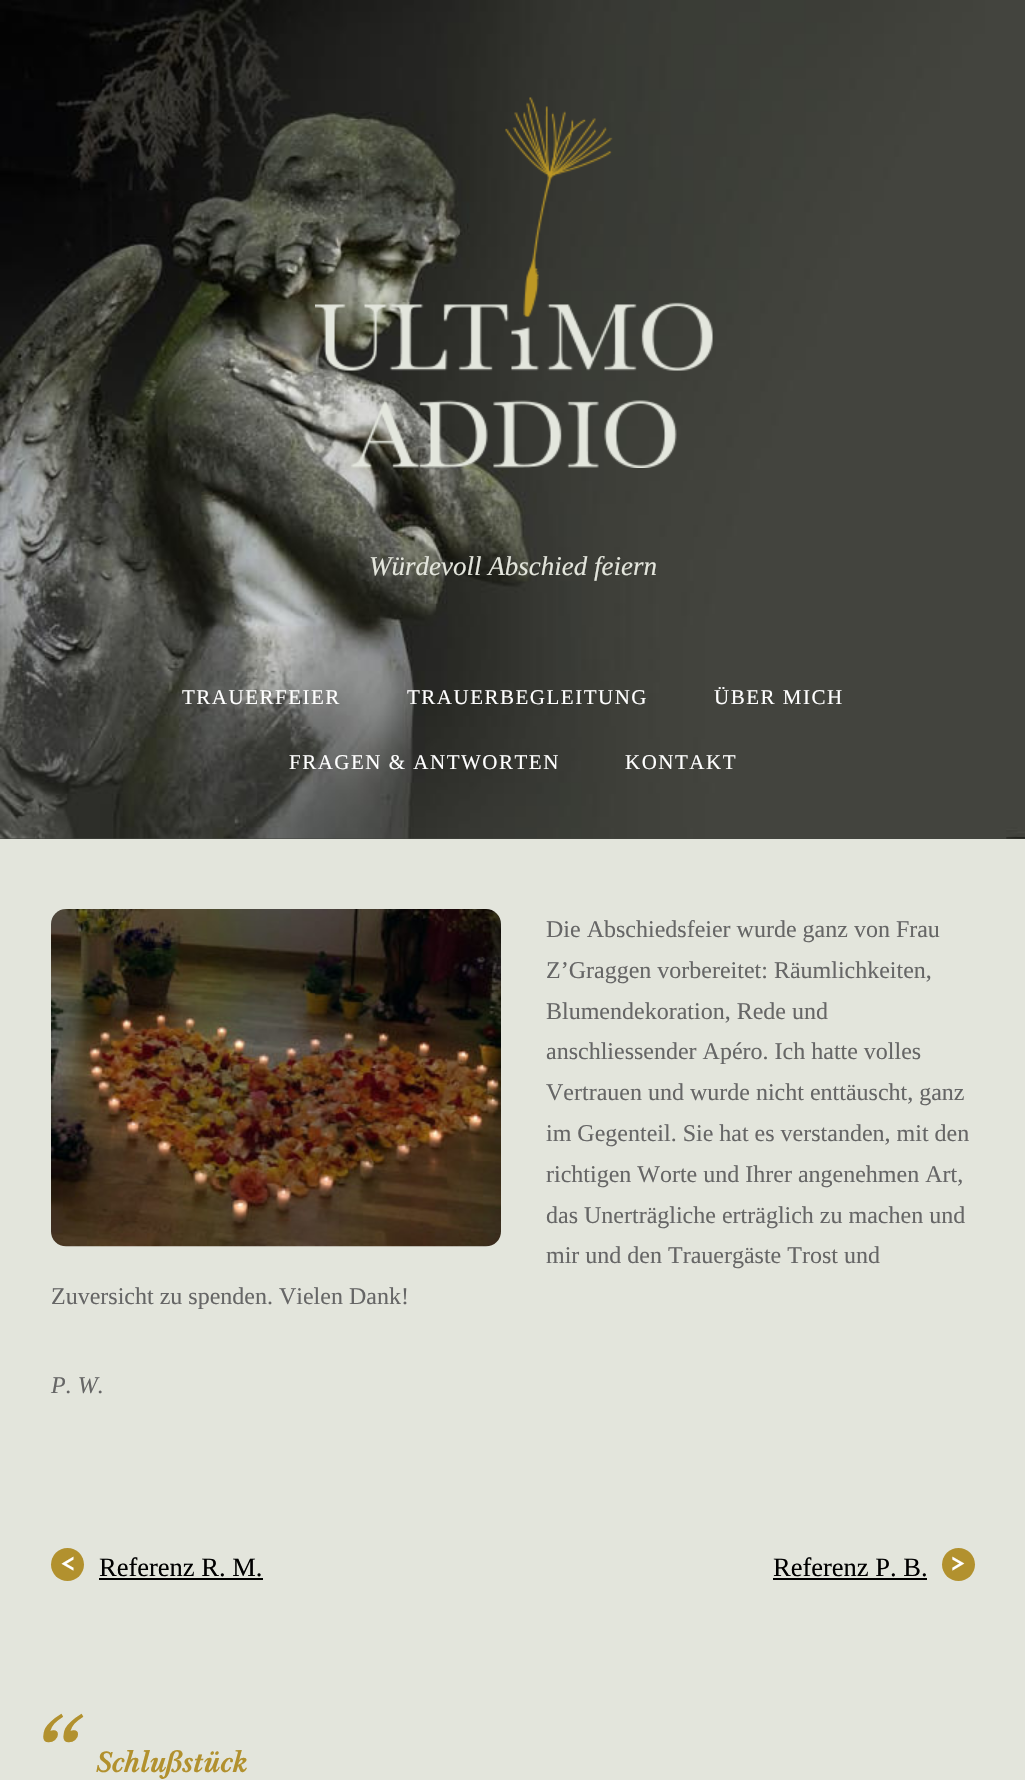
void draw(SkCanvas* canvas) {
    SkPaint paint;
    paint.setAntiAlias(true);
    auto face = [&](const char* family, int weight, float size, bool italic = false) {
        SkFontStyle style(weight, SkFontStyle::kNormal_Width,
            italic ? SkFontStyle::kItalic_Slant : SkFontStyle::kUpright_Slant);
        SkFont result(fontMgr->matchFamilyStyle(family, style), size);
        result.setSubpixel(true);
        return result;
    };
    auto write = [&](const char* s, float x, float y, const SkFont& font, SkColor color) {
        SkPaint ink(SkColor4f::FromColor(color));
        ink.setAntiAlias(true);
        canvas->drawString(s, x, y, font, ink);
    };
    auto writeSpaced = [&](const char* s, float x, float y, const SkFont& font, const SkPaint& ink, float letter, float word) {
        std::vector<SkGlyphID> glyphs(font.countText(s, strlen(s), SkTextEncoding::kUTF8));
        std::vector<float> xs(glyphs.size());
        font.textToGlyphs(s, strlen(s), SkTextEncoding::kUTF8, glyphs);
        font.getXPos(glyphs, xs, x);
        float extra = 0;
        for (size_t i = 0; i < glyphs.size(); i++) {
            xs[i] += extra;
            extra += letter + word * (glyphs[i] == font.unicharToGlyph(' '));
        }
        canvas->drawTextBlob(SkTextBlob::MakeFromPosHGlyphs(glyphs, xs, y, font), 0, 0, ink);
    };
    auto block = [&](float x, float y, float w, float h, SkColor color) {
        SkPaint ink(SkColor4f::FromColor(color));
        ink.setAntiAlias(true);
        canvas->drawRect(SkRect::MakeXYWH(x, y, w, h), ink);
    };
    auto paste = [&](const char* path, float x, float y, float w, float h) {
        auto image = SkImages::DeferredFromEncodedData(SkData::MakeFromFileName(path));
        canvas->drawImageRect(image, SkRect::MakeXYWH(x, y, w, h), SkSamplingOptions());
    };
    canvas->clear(SkColorSetRGB(227, 229, 220));
    block(0, 838, 1025, 1, SkColorSetRGB(66, 68, 61));
    paste("pic1.png", 0, 0, 1025, 839);
    paste("pic2.png", 315, 97, 398, 371);
    auto kFont1 = face("Liberation Serif", 400, 27, true);
    write("Würdevoll Abschied feiern", 369, 575, kFont1, SkColorSetRGB(227, 229, 220));
    auto kFont2 = face("Liberation Serif", 400, 21);
    paint.setColor(SK_ColorWHITE);
    writeSpaced("TRAUERFEIER", 182, 704, kFont2, paint, 1.5f, 0);
    writeSpaced("TRAUERBEGLEITUNG", 407, 704, kFont2, paint, 1.5f, 0);
    writeSpaced("ÜBER MICH", 714, 704, kFont2, paint, 1.5f, 0);
    writeSpaced("FRAGEN & ANTWORTEN", 289, 769, kFont2, paint, 1.5f, 0);
    writeSpaced("KONTAKT", 625, 769, kFont2, paint, 1.5f, 0);
    paste("pic3.png", 51, 909, 450, 338);
    auto kFont3 = face("Liberation Serif", 400, 24);
    write("Die Abschiedsfeier wurde ganz von Frau", 546, 937, kFont3, SkColorSetRGB(102, 102, 102));
    write("Z’Graggen vorbereitet: Räumlichkeiten,", 546, 978, kFont3, SkColorSetRGB(102, 102, 102));
    write("Blumendekoration, Rede und", 546, 1019, kFont3, SkColorSetRGB(102, 102, 102));
    write("anschliessender Apéro. Ich hatte volles", 546, 1059, kFont3, SkColorSetRGB(102, 102, 102));
    write("Vertrauen und wurde nicht enttäuscht, ganz", 546, 1100, kFont3, SkColorSetRGB(102, 102, 102));
    write("im Gegenteil. Sie hat es verstanden, mit den", 546, 1141, kFont3, SkColorSetRGB(102, 102, 102));
    write("richtigen Worte und Ihrer angenehmen Art,", 546, 1182, kFont3, SkColorSetRGB(102, 102, 102));
    write("das Unerträgliche erträglich zu machen und", 546, 1223, kFont3, SkColorSetRGB(102, 102, 102));
    write("mir und den Trauergäste Trost und", 546, 1263, kFont3, SkColorSetRGB(102, 102, 102));
    write("Zuversicht zu spenden. Vielen Dank!", 51, 1304, kFont3, SkColorSetRGB(102, 102, 102));
    auto kFont4 = face("Liberation Serif", 400, 24, true);
    write("P. W.", 51, 1393, kFont4, SkColorSetRGB(102, 102, 102));
    paint.setColor(SkColorSetRGB(178, 145, 46));
    canvas->drawCircle(67.5f, 1564.5f, 16.5f, paint);
    auto kFont5 = face("Josefin Sans", 400, 26.5f);
    write("<", 60, 1570, kFont5, SK_ColorWHITE);
    auto kFont6 = face("Liberation Serif", 400, 26.5f);
    write("Referenz R. M.", 99, 1576, kFont6, SK_ColorBLACK);
    block(99, 1578, 164, 2, SK_ColorBLACK);
    write("Referenz P. B.", 773, 1576, kFont6, SK_ColorBLACK);
    block(773, 1578, 154, 2, SK_ColorBLACK);
    canvas->drawCircle(958.5f, 1564.5f, 16.5f, paint);
    write(">", 950, 1570, kFont5, SK_ColorWHITE);
    auto kFont7 = face("Libre Baskerville", 400, 105, true);
    write("“", 29, 1801, kFont7, SkColorSetRGB(178, 145, 46));
    auto kFont8 = face("Libre Baskerville", 700, 26.5f, true);
    write("Schlußstück", 96, 1772, kFont8, SkColorSetRGB(178, 145, 46));
}
